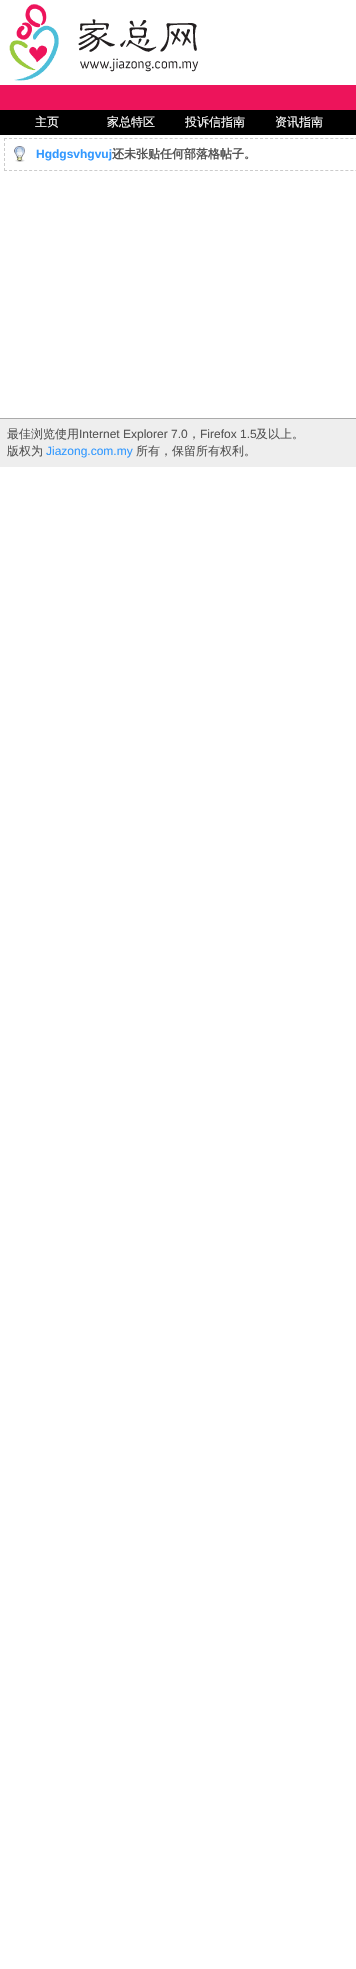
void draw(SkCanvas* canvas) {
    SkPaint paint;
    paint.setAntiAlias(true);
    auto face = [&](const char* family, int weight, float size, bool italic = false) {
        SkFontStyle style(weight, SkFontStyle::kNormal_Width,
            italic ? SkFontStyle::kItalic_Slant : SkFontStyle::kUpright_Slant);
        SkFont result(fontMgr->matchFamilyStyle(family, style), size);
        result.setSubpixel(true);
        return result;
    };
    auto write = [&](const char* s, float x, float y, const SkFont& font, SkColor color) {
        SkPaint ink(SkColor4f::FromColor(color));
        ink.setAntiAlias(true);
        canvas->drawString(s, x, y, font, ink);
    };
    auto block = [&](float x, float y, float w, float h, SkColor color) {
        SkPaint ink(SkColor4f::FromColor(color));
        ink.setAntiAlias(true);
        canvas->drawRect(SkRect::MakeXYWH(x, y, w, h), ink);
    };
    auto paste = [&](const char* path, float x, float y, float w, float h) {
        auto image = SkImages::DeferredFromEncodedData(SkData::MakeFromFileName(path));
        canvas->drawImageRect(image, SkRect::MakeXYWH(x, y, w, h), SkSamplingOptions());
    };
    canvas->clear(SK_ColorWHITE);
    paste("pic1.png", 9, 4, 190, 77);
    block(0, 85, 356, 25, SkColorSetRGB(237, 20, 91));
    block(0, 110, 356, 25, SK_ColorBLACK);
    auto kFont1 = face("WenQuanYi Zen Hei", 500, 12);
    write("主页", 35, 126, kFont1, SK_ColorWHITE);
    write("家总特区", 107, 126, kFont1, SK_ColorWHITE);
    write("投诉信指南", 185, 126, kFont1, SK_ColorWHITE);
    write("资讯指南", 275, 126, kFont1, SK_ColorWHITE);
    paint.setStyle(SkPaint::kStroke_Style);
    paint.setStrokeWidth(1);
    paint.setColor(SkColorSetRGB(204, 204, 204));
    paint.setPathEffect(SkDashPathEffect::Make({{3, 2.02f}}, 0));
    canvas->drawPath(SkPathBuilder().moveTo(4, 138.5f).lineTo(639, 138.5f).detach(), paint);
    paint.setPathEffect(nullptr);
    paint.setPathEffect(SkDashPathEffect::Make({{3, 2.02f}}, 0));
    canvas->drawPath(SkPathBuilder().moveTo(4, 170.5f).lineTo(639, 170.5f).detach(), paint);
    paint.setPathEffect(nullptr);
    paint.setPathEffect(SkDashPathEffect::Make({{3, 2}}, 0));
    canvas->drawPath(SkPathBuilder().moveTo(4.5f, 138).lineTo(4.5f, 171).detach(), paint);
    paint.setPathEffect(nullptr);
    paste("pic2.png", 14, 146, 11, 16);
    auto kFont2 = face("Liberation Sans", 700, 12);
    write("Hgdgsvhgvuj", 36, 158, kFont2, SkColorSetRGB(51, 153, 255));
    auto kFont3 = face("WenQuanYi Zen Hei", 700, 12);
    write("还未张贴任何部落格帖子。", 112, 158, kFont3, SkColorSetRGB(85, 85, 85));
    block(0, 419, 356, 48, SkColorSetRGB(238, 238, 238));
    block(0, 418, 356, 1, SkColorSetRGB(170, 170, 170));
    write("最佳浏览使用", 7, 438, kFont1, SkColorSetRGB(85, 85, 85));
    auto kFont4 = face("Liberation Sans", 400, 12);
    write("Internet Explorer 7.0", 79, 438, kFont4, SkColorSetRGB(85, 85, 85));
    write("，", 188, 438, kFont1, SkColorSetRGB(85, 85, 85));
    write("Firefox 1.5", 200, 438, kFont4, SkColorSetRGB(85, 85, 85));
    write("及以上。", 256, 438, kFont1, SkColorSetRGB(85, 85, 85));
    write("版权为", 7, 455, kFont1, SkColorSetRGB(85, 85, 85));
    write("Jiazong.com.my", 46, 455, kFont4, SkColorSetRGB(51, 153, 255));
    write("所有，保留所有权利。", 136, 455, kFont1, SkColorSetRGB(85, 85, 85));
}
